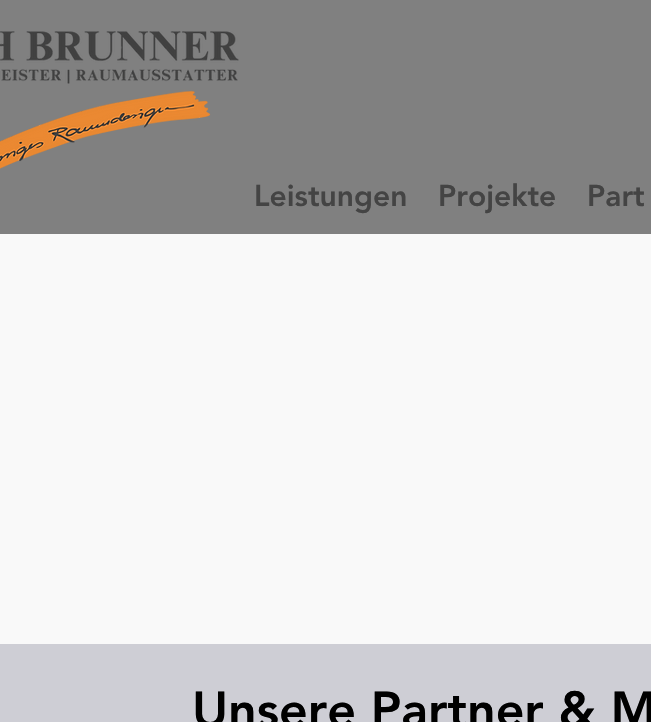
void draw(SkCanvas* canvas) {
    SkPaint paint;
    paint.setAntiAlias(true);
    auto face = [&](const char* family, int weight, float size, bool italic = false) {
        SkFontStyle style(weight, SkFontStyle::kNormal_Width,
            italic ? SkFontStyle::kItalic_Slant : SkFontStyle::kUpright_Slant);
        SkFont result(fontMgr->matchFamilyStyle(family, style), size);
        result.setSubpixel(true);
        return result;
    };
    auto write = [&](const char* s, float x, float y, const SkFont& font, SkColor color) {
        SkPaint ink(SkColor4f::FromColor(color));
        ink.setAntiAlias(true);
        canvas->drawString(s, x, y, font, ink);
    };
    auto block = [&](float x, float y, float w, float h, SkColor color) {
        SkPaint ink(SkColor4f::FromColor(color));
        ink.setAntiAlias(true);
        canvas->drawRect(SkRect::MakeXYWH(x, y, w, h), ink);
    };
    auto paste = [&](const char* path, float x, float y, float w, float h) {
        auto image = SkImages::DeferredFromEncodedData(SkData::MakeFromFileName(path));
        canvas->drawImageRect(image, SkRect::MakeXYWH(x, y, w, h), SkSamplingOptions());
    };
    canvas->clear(SkColorSetRGB(249, 249, 249));
    block(0, 0, 651, 234, SkColorSetRGB(128, 128, 128));
    paste("pic1.png", 0, 31, 239, 138);
    auto kFont1 = face("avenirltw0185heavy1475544", 900, 30);
    write("Leistungen", 254, 206, kFont1, SkColorSetRGB(68, 68, 68));
    write("Projekte", 438, 206, kFont1, SkColorSetRGB(68, 68, 68));
    write("Part", 587, 206, kFont1, SkColorSetRGB(68, 68, 68));
    block(0, 644, 651, 78, SkColorSetRGB(206, 206, 213));
    auto kFont2 = face("avenirltw0185heavy1475544", 900, 50);
    write("Unsere Partner & M", 192, 727, kFont2, SK_ColorBLACK);
}
